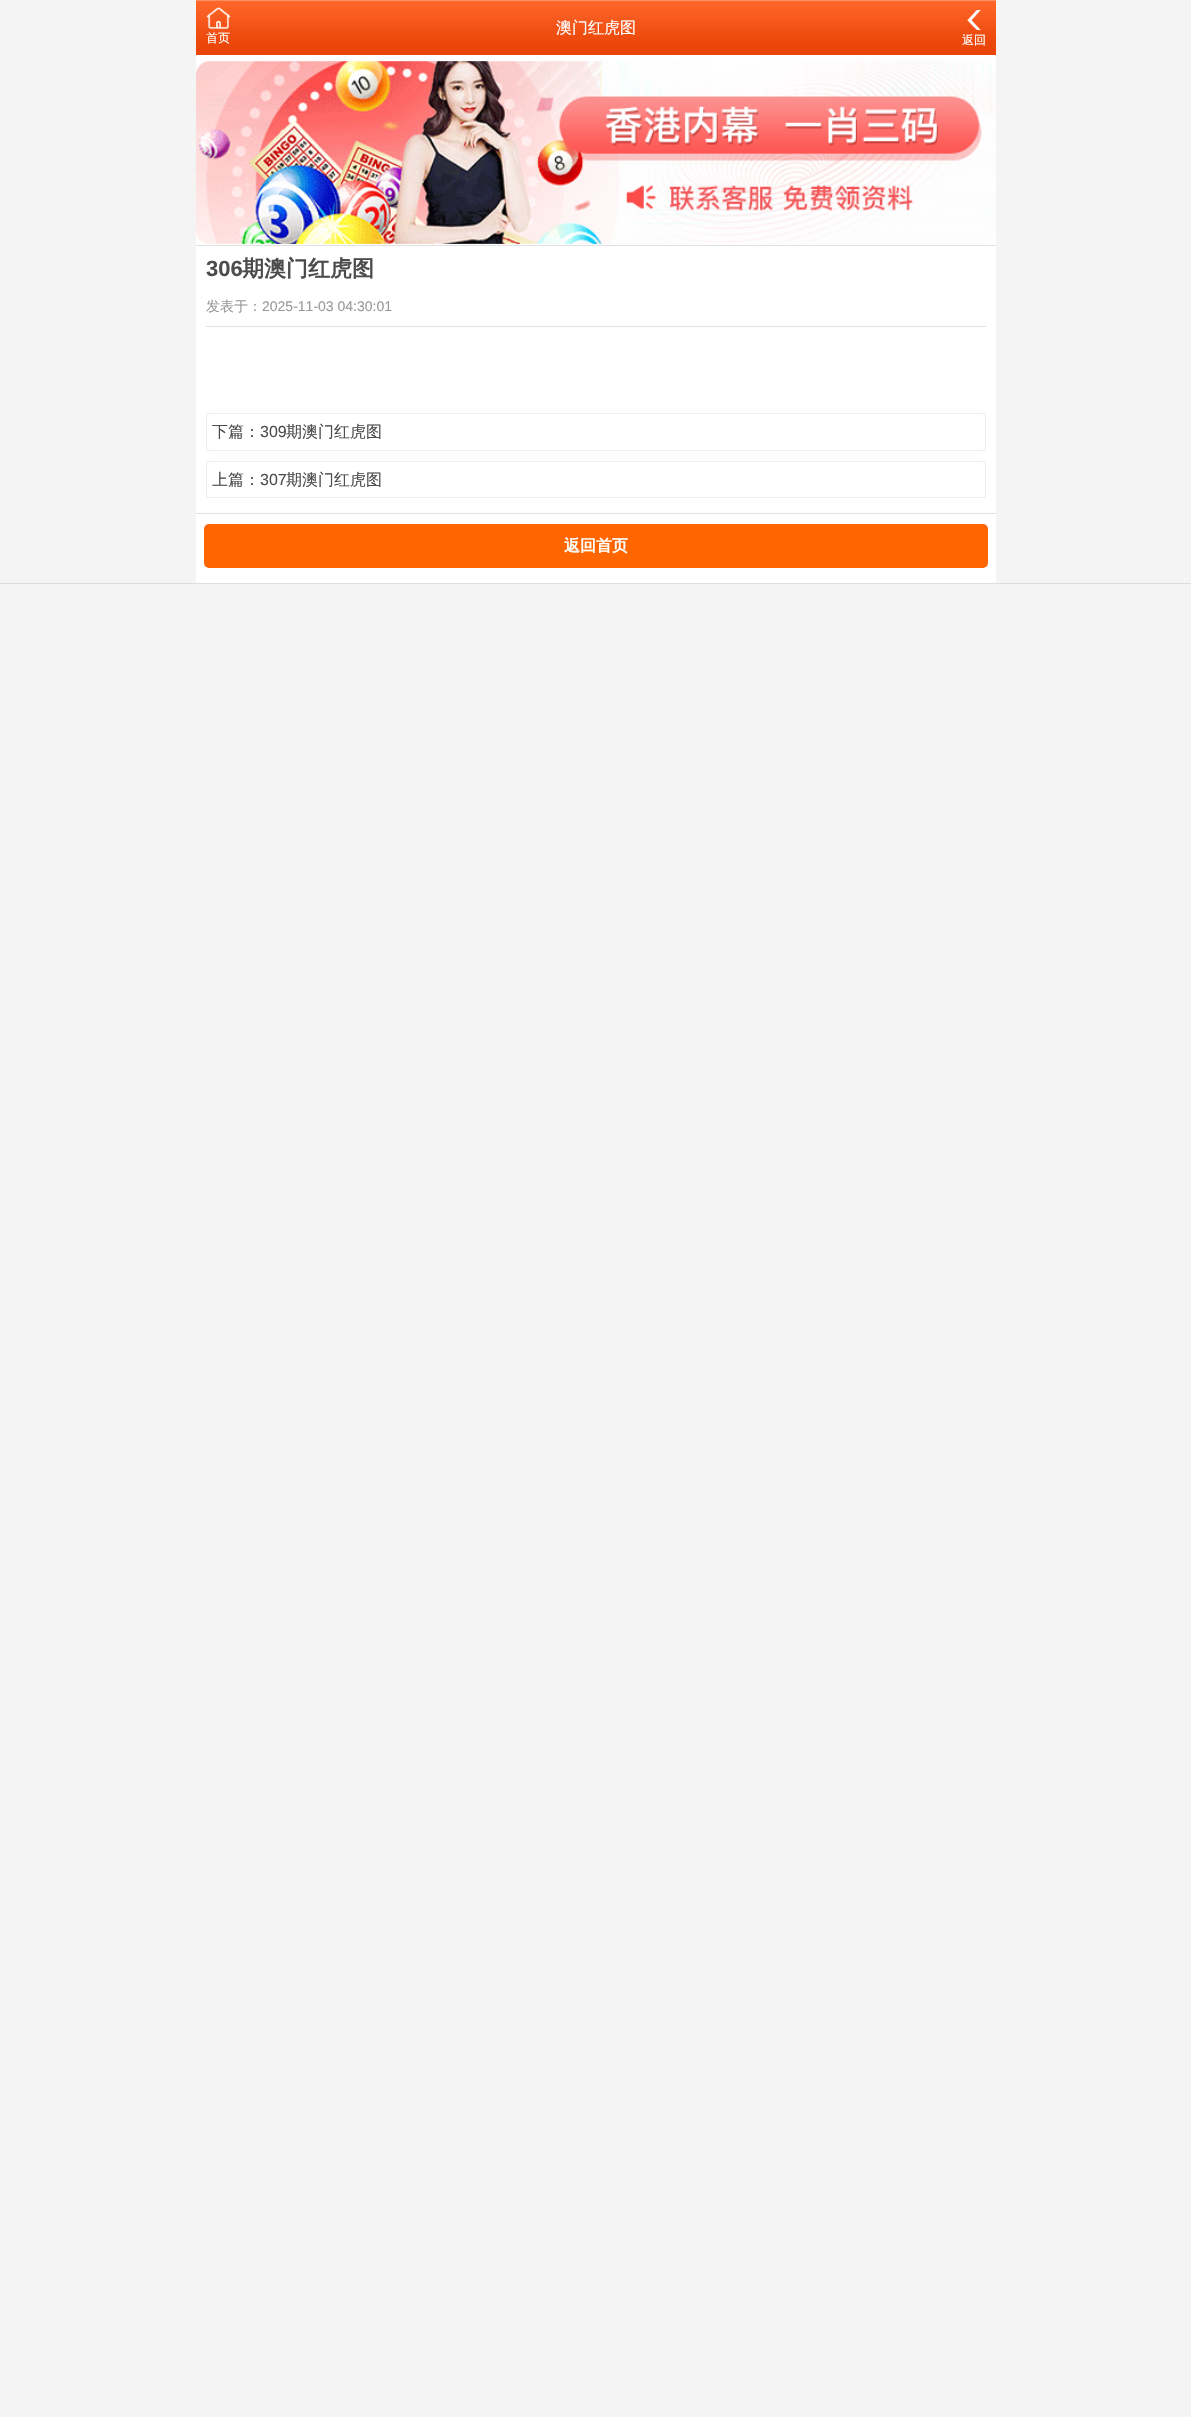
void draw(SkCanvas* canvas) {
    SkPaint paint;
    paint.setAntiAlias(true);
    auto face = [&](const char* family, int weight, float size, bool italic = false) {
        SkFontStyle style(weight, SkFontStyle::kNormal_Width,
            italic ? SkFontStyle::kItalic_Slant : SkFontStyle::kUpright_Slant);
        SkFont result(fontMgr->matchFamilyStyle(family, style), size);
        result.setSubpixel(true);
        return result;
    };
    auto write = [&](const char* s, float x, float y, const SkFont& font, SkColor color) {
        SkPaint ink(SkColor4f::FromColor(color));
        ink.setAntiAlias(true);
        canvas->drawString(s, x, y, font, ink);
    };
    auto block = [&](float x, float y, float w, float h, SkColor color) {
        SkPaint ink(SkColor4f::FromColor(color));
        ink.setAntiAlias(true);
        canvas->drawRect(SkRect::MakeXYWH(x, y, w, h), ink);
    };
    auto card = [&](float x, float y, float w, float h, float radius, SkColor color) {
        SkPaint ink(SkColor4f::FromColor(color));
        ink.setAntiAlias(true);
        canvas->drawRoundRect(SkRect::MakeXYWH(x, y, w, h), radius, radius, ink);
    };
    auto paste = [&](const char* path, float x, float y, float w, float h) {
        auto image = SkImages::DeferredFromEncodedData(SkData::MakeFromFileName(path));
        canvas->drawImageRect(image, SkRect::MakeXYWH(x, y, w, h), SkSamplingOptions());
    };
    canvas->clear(SkColorSetRGB(244, 244, 245));
    block(196, 55, 800, 528, SK_ColorWHITE);
    paste("pic1.png", 196, 0, 800, 55);
    auto kFont1 = face("WenQuanYi Zen Hei", 500, 16);
    write("澳门红虎图", 556, 33, kFont1, SK_ColorWHITE);
    paste("pic2.png", 206, 7, 25, 23);
    auto kFont2 = face("WenQuanYi Zen Hei", 500, 12);
    write("首页", 206, 42, kFont2, SK_ColorWHITE);
    paste("pic3.png", 967, 10, 14, 20);
    write("返回", 962, 44, kFont2, SK_ColorWHITE);
    block(196, 245, 800, 1, SkColorSetRGB(224, 224, 224));
    paste("pic4.png", 196, 60, 800, 185);
    auto kFont3 = face("Liberation Sans", 700, 22);
    write("306", 206, 276, kFont3, SkColorSetRGB(76, 76, 76));
    auto kFont4 = face("WenQuanYi Zen Hei", 700, 22);
    write("期澳门红虎图", 242, 276, kFont4, SkColorSetRGB(76, 76, 76));
    block(206, 326, 780, 1, SkColorSetRGB(224, 224, 224));
    auto kFont5 = face("WenQuanYi Zen Hei", 500, 14);
    write("发表于：", 206, 311, kFont5, SkColorSetRGB(153, 153, 153));
    auto kFont6 = face("Liberation Sans", 400, 14);
    write("2025-11-03 04:30:01", 262, 311, kFont6, SkColorSetRGB(153, 153, 153));
    paint.setStyle(SkPaint::kStroke_Style);
    paint.setStrokeWidth(1);
    paint.setColor(SkColorSetRGB(238, 238, 238));
    canvas->drawRoundRect(SkRect::MakeXYWH(206.5f, 413.5f, 779, 37), 2.5f, 2.5f, paint);
    write("下篇：", 212, 437, kFont1, SkColorSetRGB(76, 76, 76));
    auto kFont7 = face("Liberation Sans", 400, 16);
    write("309", 260, 437, kFont7, SkColorSetRGB(76, 76, 76));
    write("期澳门红虎图", 286, 437, kFont1, SkColorSetRGB(76, 76, 76));
    canvas->drawRoundRect(SkRect::MakeXYWH(206.5f, 461.5f, 779, 36), 2.5f, 2.5f, paint);
    write("上篇：", 212, 485, kFont1, SkColorSetRGB(76, 76, 76));
    write("307", 260, 485, kFont7, SkColorSetRGB(76, 76, 76));
    write("期澳门红虎图", 286, 485, kFont1, SkColorSetRGB(76, 76, 76));
    block(196, 513, 800, 1, SkColorSetRGB(224, 224, 224));
    card(204, 524, 784, 44, 5, SkColorSetRGB(255, 102, 0));
    auto kFont8 = face("WenQuanYi Zen Hei", 700, 16);
    write("返回首页", 564, 551, kFont8, SK_ColorWHITE);
    block(0, 583, 1191, 1, SkColorSetRGB(221, 221, 221));
}
